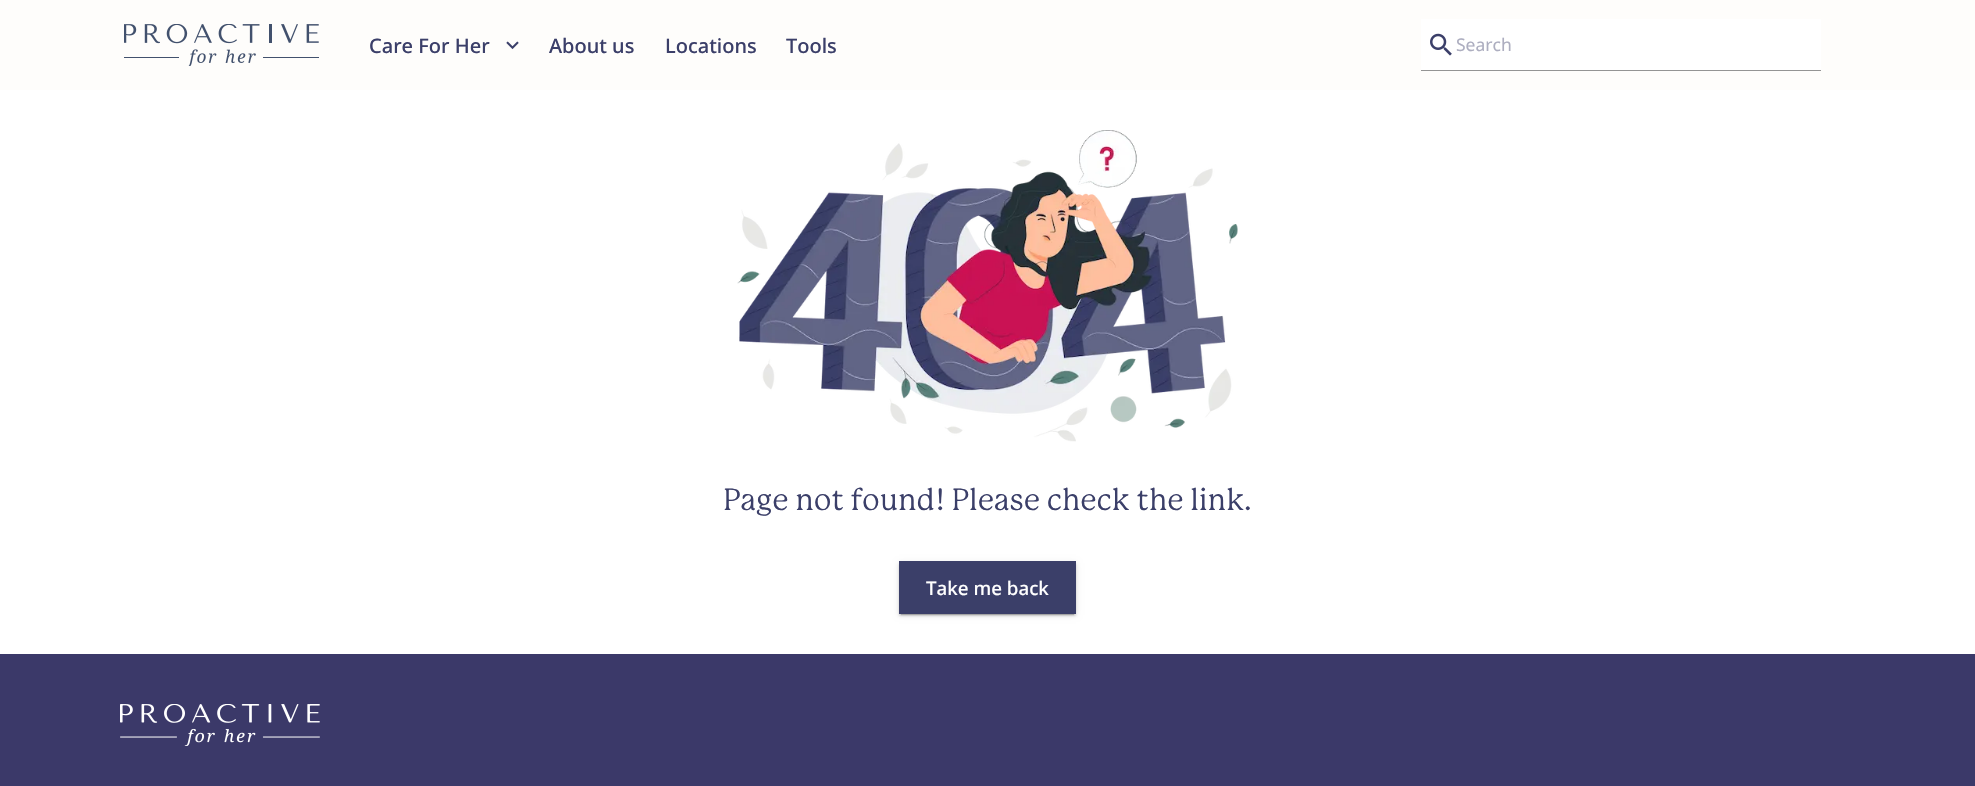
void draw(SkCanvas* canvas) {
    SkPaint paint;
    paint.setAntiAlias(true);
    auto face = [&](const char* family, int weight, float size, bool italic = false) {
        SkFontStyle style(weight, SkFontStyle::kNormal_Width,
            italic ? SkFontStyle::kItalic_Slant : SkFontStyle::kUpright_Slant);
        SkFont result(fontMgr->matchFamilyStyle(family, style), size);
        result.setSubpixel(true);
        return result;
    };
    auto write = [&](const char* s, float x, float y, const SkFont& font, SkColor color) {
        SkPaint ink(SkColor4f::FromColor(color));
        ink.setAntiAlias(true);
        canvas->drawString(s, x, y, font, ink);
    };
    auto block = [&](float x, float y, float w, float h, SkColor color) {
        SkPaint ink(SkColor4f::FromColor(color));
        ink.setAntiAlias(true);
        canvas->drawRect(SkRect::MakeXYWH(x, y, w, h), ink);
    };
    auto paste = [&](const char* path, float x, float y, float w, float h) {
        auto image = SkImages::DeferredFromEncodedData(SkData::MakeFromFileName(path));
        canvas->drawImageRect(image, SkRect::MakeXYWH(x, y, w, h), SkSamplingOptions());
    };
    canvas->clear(SK_ColorWHITE);
    block(0, 0, 1975, 90, SkColorSetRGB(254, 253, 251));
    paste("pic1.png", 124, 24, 195, 42);
    auto kFont1 = face("Noto Sans", 500, 20);
    write("Care For Her", 369, 53, kFont1, SkColorSetRGB(59, 63, 105));
    paste("pic2.png", 506, 41, 13, 9);
    write("About us", 549, 53, kFont1, SkColorSetRGB(59, 63, 105));
    write("Locations", 665, 53, kFont1, SkColorSetRGB(59, 63, 105));
    write("Tools", 786, 53, kFont1, SkColorSetRGB(59, 63, 105));
    block(1421, 19, 400, 51, SK_ColorWHITE);
    paste("pic3.png", 1430, 33, 22, 23);
    auto kFont2 = face("Noto Sans", 400, 17.5f);
    write("Search", 1456, 51, kFont2, SkColorSetRGB(173, 174, 192));
    block(1421, 70, 400, 1, SkColorSetRGB(148, 148, 148));
    paste("pic4.png", 737, 130, 501, 312);
    auto kFont3 = face("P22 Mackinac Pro", 400, 30);
    write("Page not found! Please check the link.", 723, 510, kFont3, SkColorSetRGB(59, 63, 105));
    paint.setColor(SkColorSetARGB(31, 0, 0, 0));
    paint.setMaskFilter(SkMaskFilter::MakeBlur(kNormal_SkBlurStyle, 3));
    canvas->drawRect(SkRect::MakeXYWH(899, 563, 177, 52), paint);
    paint.setMaskFilter(nullptr);
    paint.setColor(SkColorSetARGB(36, 0, 0, 0));
    paint.setMaskFilter(SkMaskFilter::MakeBlur(kNormal_SkBlurStyle, 1));
    canvas->drawRect(SkRect::MakeXYWH(899, 564, 177, 52), paint);
    paint.setMaskFilter(nullptr);
    paint.setColor(SkColorSetARGB(51, 0, 0, 0));
    paint.setMaskFilter(SkMaskFilter::MakeBlur(kNormal_SkBlurStyle, 0.5f));
    canvas->drawRect(SkRect::MakeXYWH(901, 568, 173, 47), paint);
    paint.setMaskFilter(nullptr);
    block(899, 561, 177, 53, SkColorSetRGB(59, 63, 105));
    auto kFont4 = face("Noto Sans", 500, 18.75f);
    write("Take me back", 926, 595, kFont4, SK_ColorWHITE);
    block(0, 654, 1975, 132, SkColorSetRGB(59, 57, 105));
    paste("pic5.png", 120, 704, 200, 42);
}
